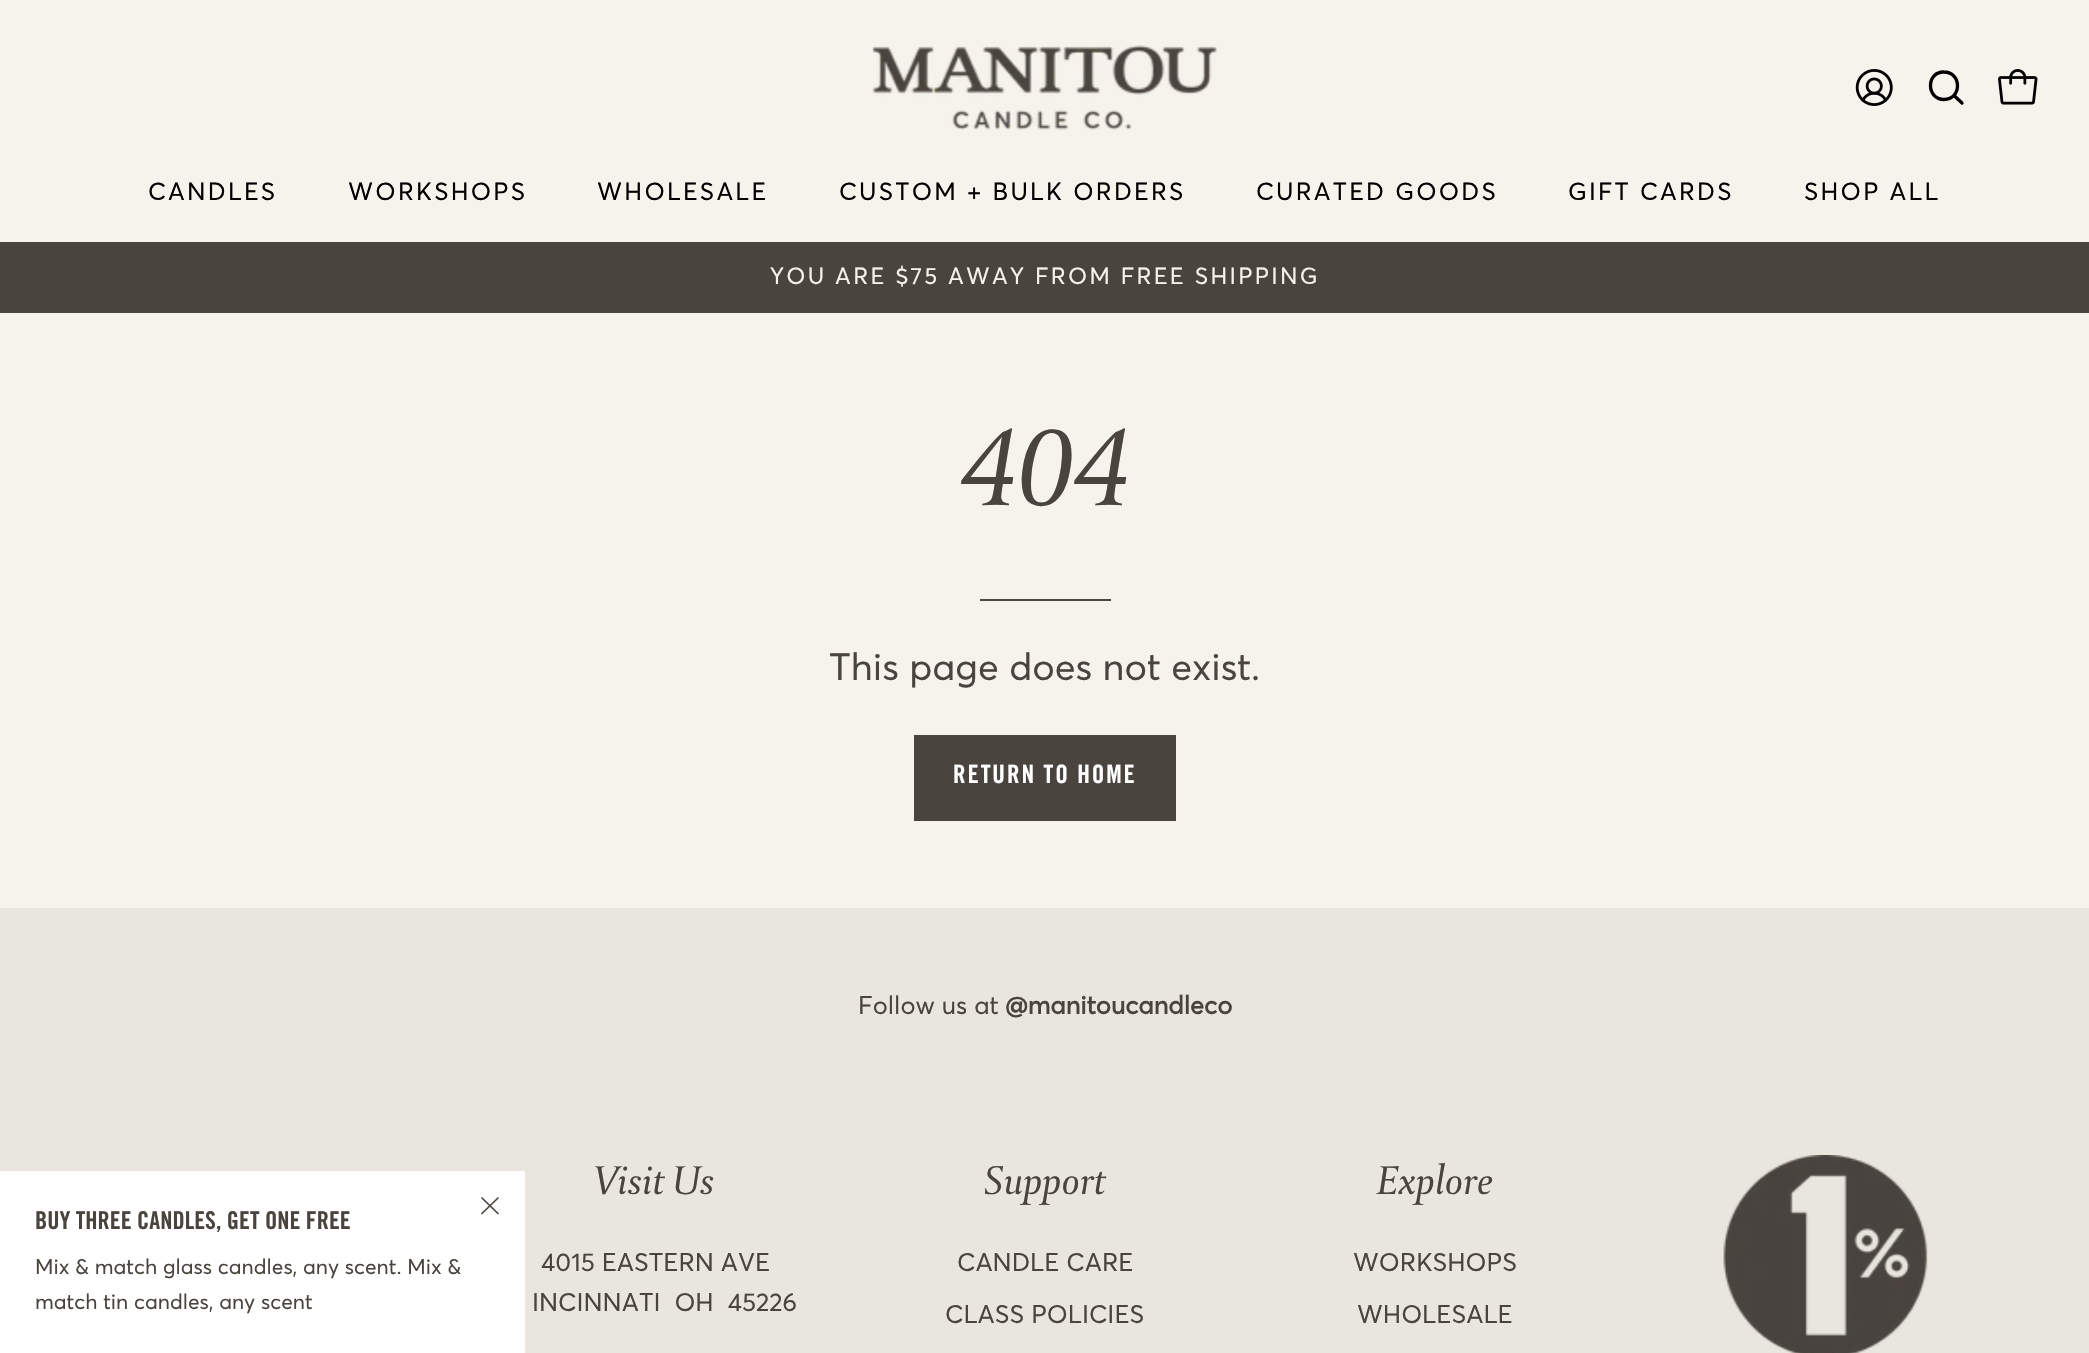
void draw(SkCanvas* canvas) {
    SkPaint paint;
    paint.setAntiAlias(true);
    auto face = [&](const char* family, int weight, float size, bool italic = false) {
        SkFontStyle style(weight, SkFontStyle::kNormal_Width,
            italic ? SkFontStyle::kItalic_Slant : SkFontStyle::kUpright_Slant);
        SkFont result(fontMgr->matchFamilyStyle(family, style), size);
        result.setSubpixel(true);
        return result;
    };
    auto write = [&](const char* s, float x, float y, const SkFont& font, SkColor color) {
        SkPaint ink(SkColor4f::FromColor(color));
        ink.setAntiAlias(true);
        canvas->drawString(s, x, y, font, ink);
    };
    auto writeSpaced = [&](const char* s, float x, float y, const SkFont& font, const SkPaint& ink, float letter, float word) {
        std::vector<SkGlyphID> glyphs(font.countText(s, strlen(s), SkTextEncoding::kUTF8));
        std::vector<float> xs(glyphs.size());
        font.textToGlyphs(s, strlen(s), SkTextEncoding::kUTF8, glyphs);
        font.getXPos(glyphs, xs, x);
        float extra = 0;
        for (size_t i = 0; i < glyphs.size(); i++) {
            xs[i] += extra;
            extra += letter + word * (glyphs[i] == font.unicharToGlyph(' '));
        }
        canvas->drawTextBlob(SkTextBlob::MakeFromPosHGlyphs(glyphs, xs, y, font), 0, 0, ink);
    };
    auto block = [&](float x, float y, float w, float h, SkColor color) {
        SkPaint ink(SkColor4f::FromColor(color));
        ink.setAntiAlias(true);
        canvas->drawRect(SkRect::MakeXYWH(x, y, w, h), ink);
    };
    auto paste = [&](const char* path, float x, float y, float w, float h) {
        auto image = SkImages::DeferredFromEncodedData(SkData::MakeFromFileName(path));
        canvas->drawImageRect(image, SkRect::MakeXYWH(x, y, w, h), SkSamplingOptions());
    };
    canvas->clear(SkColorSetRGB(245, 243, 236));
    paste("pic1.png", 872, 45, 345, 85);
    paste("pic2.png", 1855, 69, 38, 37);
    paint.setStyle(SkPaint::kStroke_Style);
    paint.setStrokeWidth(3.3f);
    paint.setStrokeCap(SkPaint::kRound_Cap);
    paint.setStrokeJoin(SkPaint::kRound_Join);
    paint.setColor(SK_ColorBLACK);
    canvas->drawPath(SkPathBuilder().moveTo(1944, 99.5f).cubicTo(1962, 99.5f, 1962, 72, 1944, 72).cubicTo(1926, 71.5f, 1926, 99.5f, 1944, 99.5f).close().moveTo(1954, 95.5f).lineTo(1962, 103).detach(), paint);
    paste("pic3.png", 1998, 69, 40, 36);
    auto kFont1 = face("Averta", 400, 24.5f);
    paint.setStyle(SkPaint::kFill_Style);
    writeSpaced("CANDLES", 148, 200, kFont1, paint, 2.25f, 0);
    writeSpaced("WORKSHOPS", 348, 200, kFont1, paint, 2.25f, 0);
    writeSpaced("WHOLESALE", 597, 200, kFont1, paint, 2.25f, 0);
    writeSpaced("CUSTOM + BULK ORDERS", 839, 200, kFont1, paint, 2.25f, 0);
    writeSpaced("CURATED GOODS", 1256, 200, kFont1, paint, 2.25f, 0);
    writeSpaced("GIFT CARDS", 1568, 200, kFont1, paint, 2.25f, 0);
    writeSpaced("SHOP ALL", 1804, 200, kFont1, paint, 2.25f, 0);
    block(0, 242, 2089, 71, SkColorSetRGB(73, 68, 62));
    auto kFont2 = face("Averta", 400, 23.1f);
    paint.setColor(SkColorSetRGB(245, 243, 236));
    writeSpaced("YOU ARE $75 AWAY FROM FREE SHIPPING", 770, 284, kFont2, paint, 2.3f, 0);
    auto kFont3 = face("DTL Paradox", 400, 113, true);
    write("404", 960, 505, kFont3, SkColorSetRGB(73, 68, 62));
    block(980, 599, 131, 2, SkColorSetRGB(73, 68, 62));
    auto kFont4 = face("Averta", 400, 37.75f);
    write("This page does not exist.", 829, 680, kFont4, SkColorSetRGB(73, 68, 62));
    block(914, 735, 262, 86, SkColorSetRGB(73, 68, 62));
    auto kFont5 = face("Trade Gothic", 700, 25.25f);
    paint.setColor(SK_ColorWHITE);
    writeSpaced("RETURN TO HOME", 953, 783, kFont5, paint, 1.9f, 0);
    block(0, 908, 2089, 445, SkColorSetRGB(233, 231, 221));
    auto kFont6 = face("Averta", 400, 25.25f);
    write("Follow us at", 858, 1014, kFont6, SkColorSetRGB(73, 68, 62));
    auto kFont7 = face("Averta", 700, 25.25f);
    write("@manitoucandleco", 1005, 1014, kFont7, SkColorSetRGB(73, 68, 62));
    block(0, 1171, 525, 182, SK_ColorWHITE);
    paint.setStyle(SkPaint::kStroke_Style);
    paint.setStrokeWidth(1.7f);
    paint.setColor(SkColorSetRGB(73, 68, 62));
    canvas->drawPath(SkPathBuilder().moveTo(498, 1198).lineTo(482, 1213.5f).moveTo(498, 1213.5f).lineTo(482, 1198).detach(), paint);
    auto kFont8 = face("Trade Gothic", 700, 24.5f);
    write("BUY THREE CANDLES, GET ONE FREE", 35, 1229, kFont8, SkColorSetRGB(73, 68, 62));
    auto kFont9 = face("Averta", 400, 21);
    write("Mix & match glass candles, any scent. Mix &", 35, 1274, kFont9, SkColorSetRGB(73, 68, 62));
    write("match tin candles, any scent", 35, 1309, kFont9, SkColorSetRGB(73, 68, 62));
    auto kFont10 = face("DTL Paradox", 400, 42, true);
    write("Visit Us", 595, 1194, kFont10, SkColorSetRGB(73, 68, 62));
    write("4015 EASTERN AVE", 541, 1271, kFont6, SkColorSetRGB(73, 68, 62));
    paint.setStyle(SkPaint::kFill_Style);
    writeSpaced("INCINNATI OH 45226", 532, 1311, kFont6, paint, 0, 7);
    write("Support", 984, 1194, kFont10, SkColorSetRGB(73, 68, 62));
    write("CANDLE CARE", 957, 1271, kFont6, SkColorSetRGB(73, 68, 62));
    write("CLASS POLICIES", 945, 1323, kFont6, SkColorSetRGB(73, 68, 62));
    write("Explore", 1377, 1194, kFont10, SkColorSetRGB(73, 68, 62));
    write("WORKSHOPS", 1353, 1271, kFont6, SkColorSetRGB(73, 68, 62));
    write("WHOLESALE", 1357, 1323, kFont6, SkColorSetRGB(73, 68, 62));
    paste("pic4.png", 1723, 1155, 205, 198);
}
